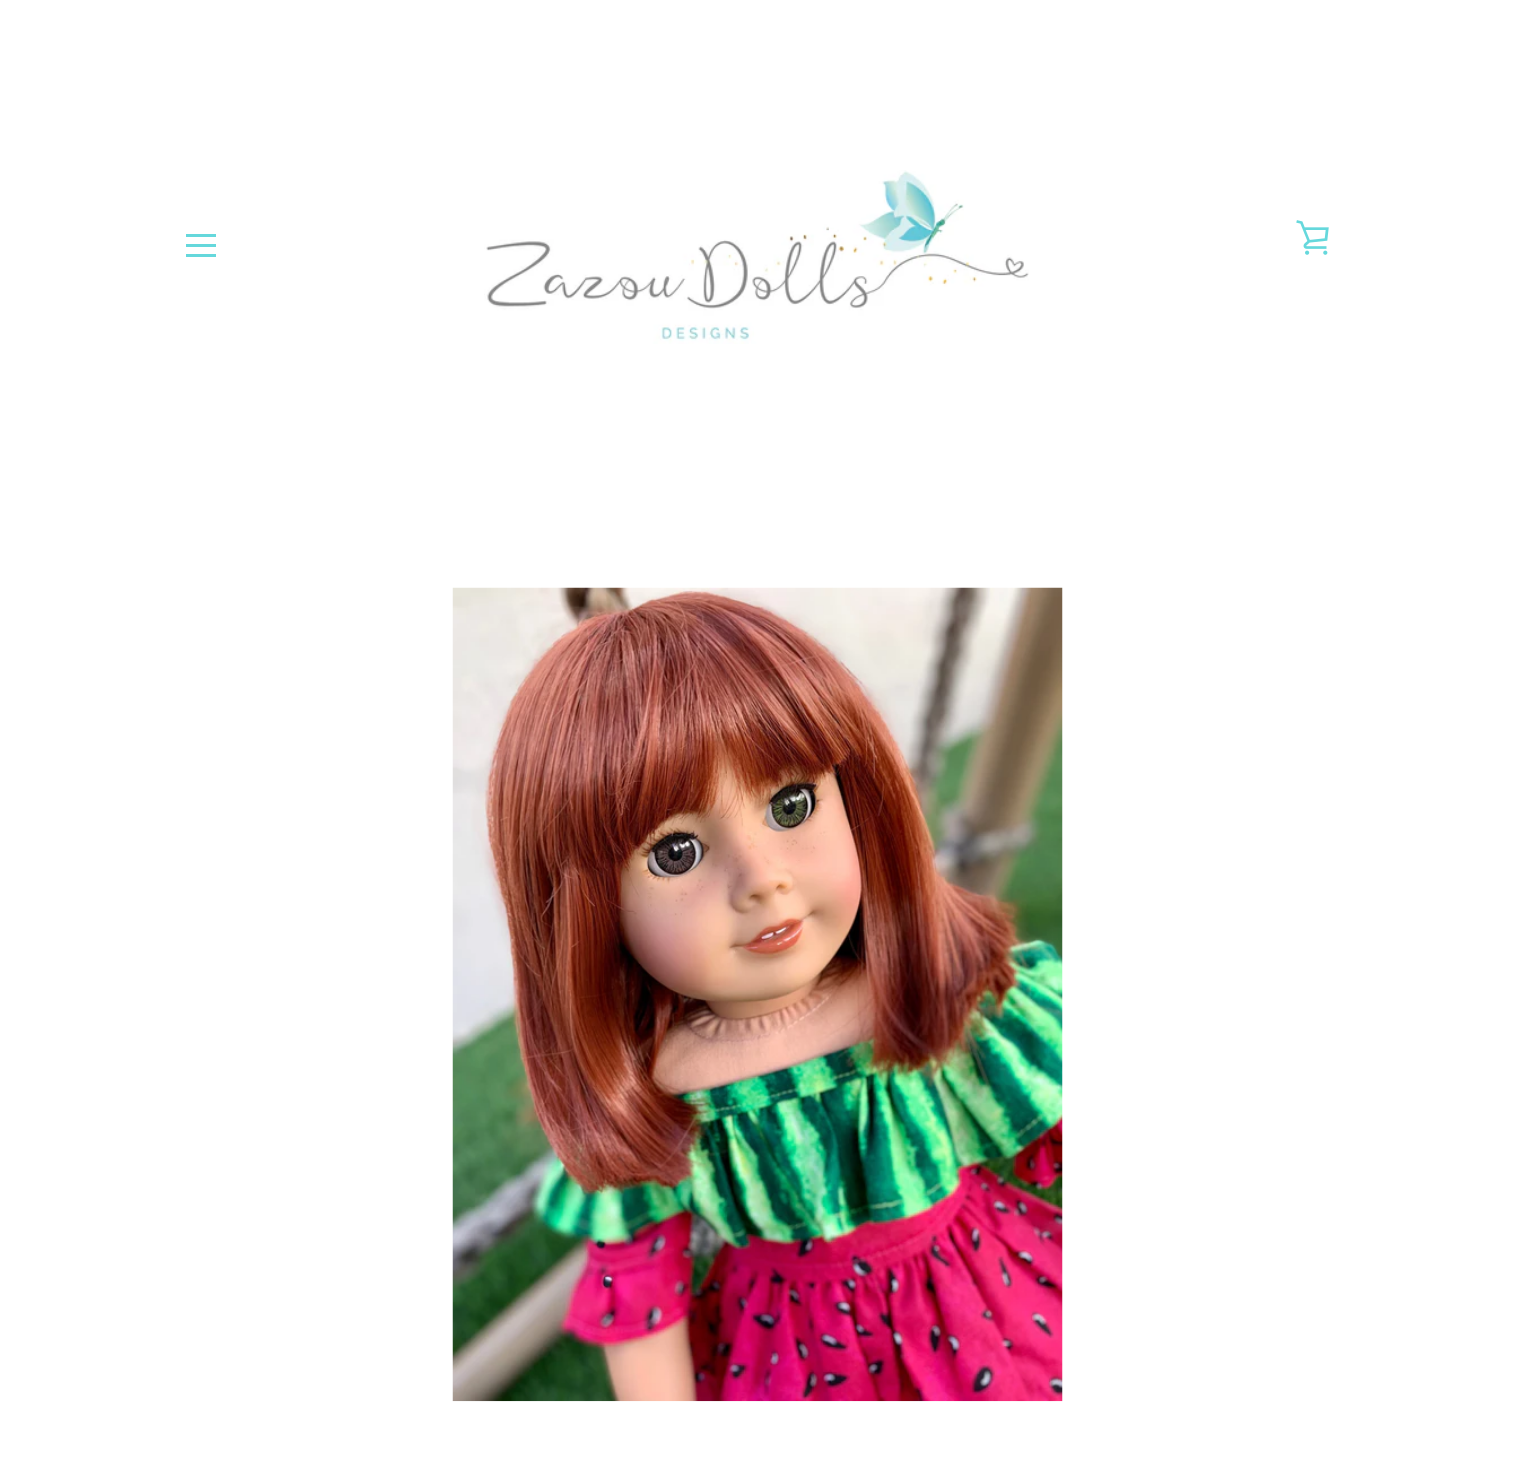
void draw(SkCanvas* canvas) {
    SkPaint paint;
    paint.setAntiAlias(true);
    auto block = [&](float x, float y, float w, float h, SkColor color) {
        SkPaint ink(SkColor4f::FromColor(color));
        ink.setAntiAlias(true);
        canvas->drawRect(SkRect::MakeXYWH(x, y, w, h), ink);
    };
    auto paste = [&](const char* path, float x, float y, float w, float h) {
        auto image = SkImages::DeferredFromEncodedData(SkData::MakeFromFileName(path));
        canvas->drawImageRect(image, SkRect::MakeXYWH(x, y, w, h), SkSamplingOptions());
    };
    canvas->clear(SK_ColorWHITE);
    block(186, 234, 30, 3, SkColorSetRGB(101, 216, 220));
    block(186, 244, 30, 3, SkColorSetRGB(101, 216, 220));
    block(186, 254, 30, 3, SkColorSetRGB(101, 216, 220));
    paste("pic1.png", 484, 170, 545, 174);
    paste("pic2.png", 1296, 220, 33, 35);
    paste("pic3.png", 452, 587, 611, 815);
}
